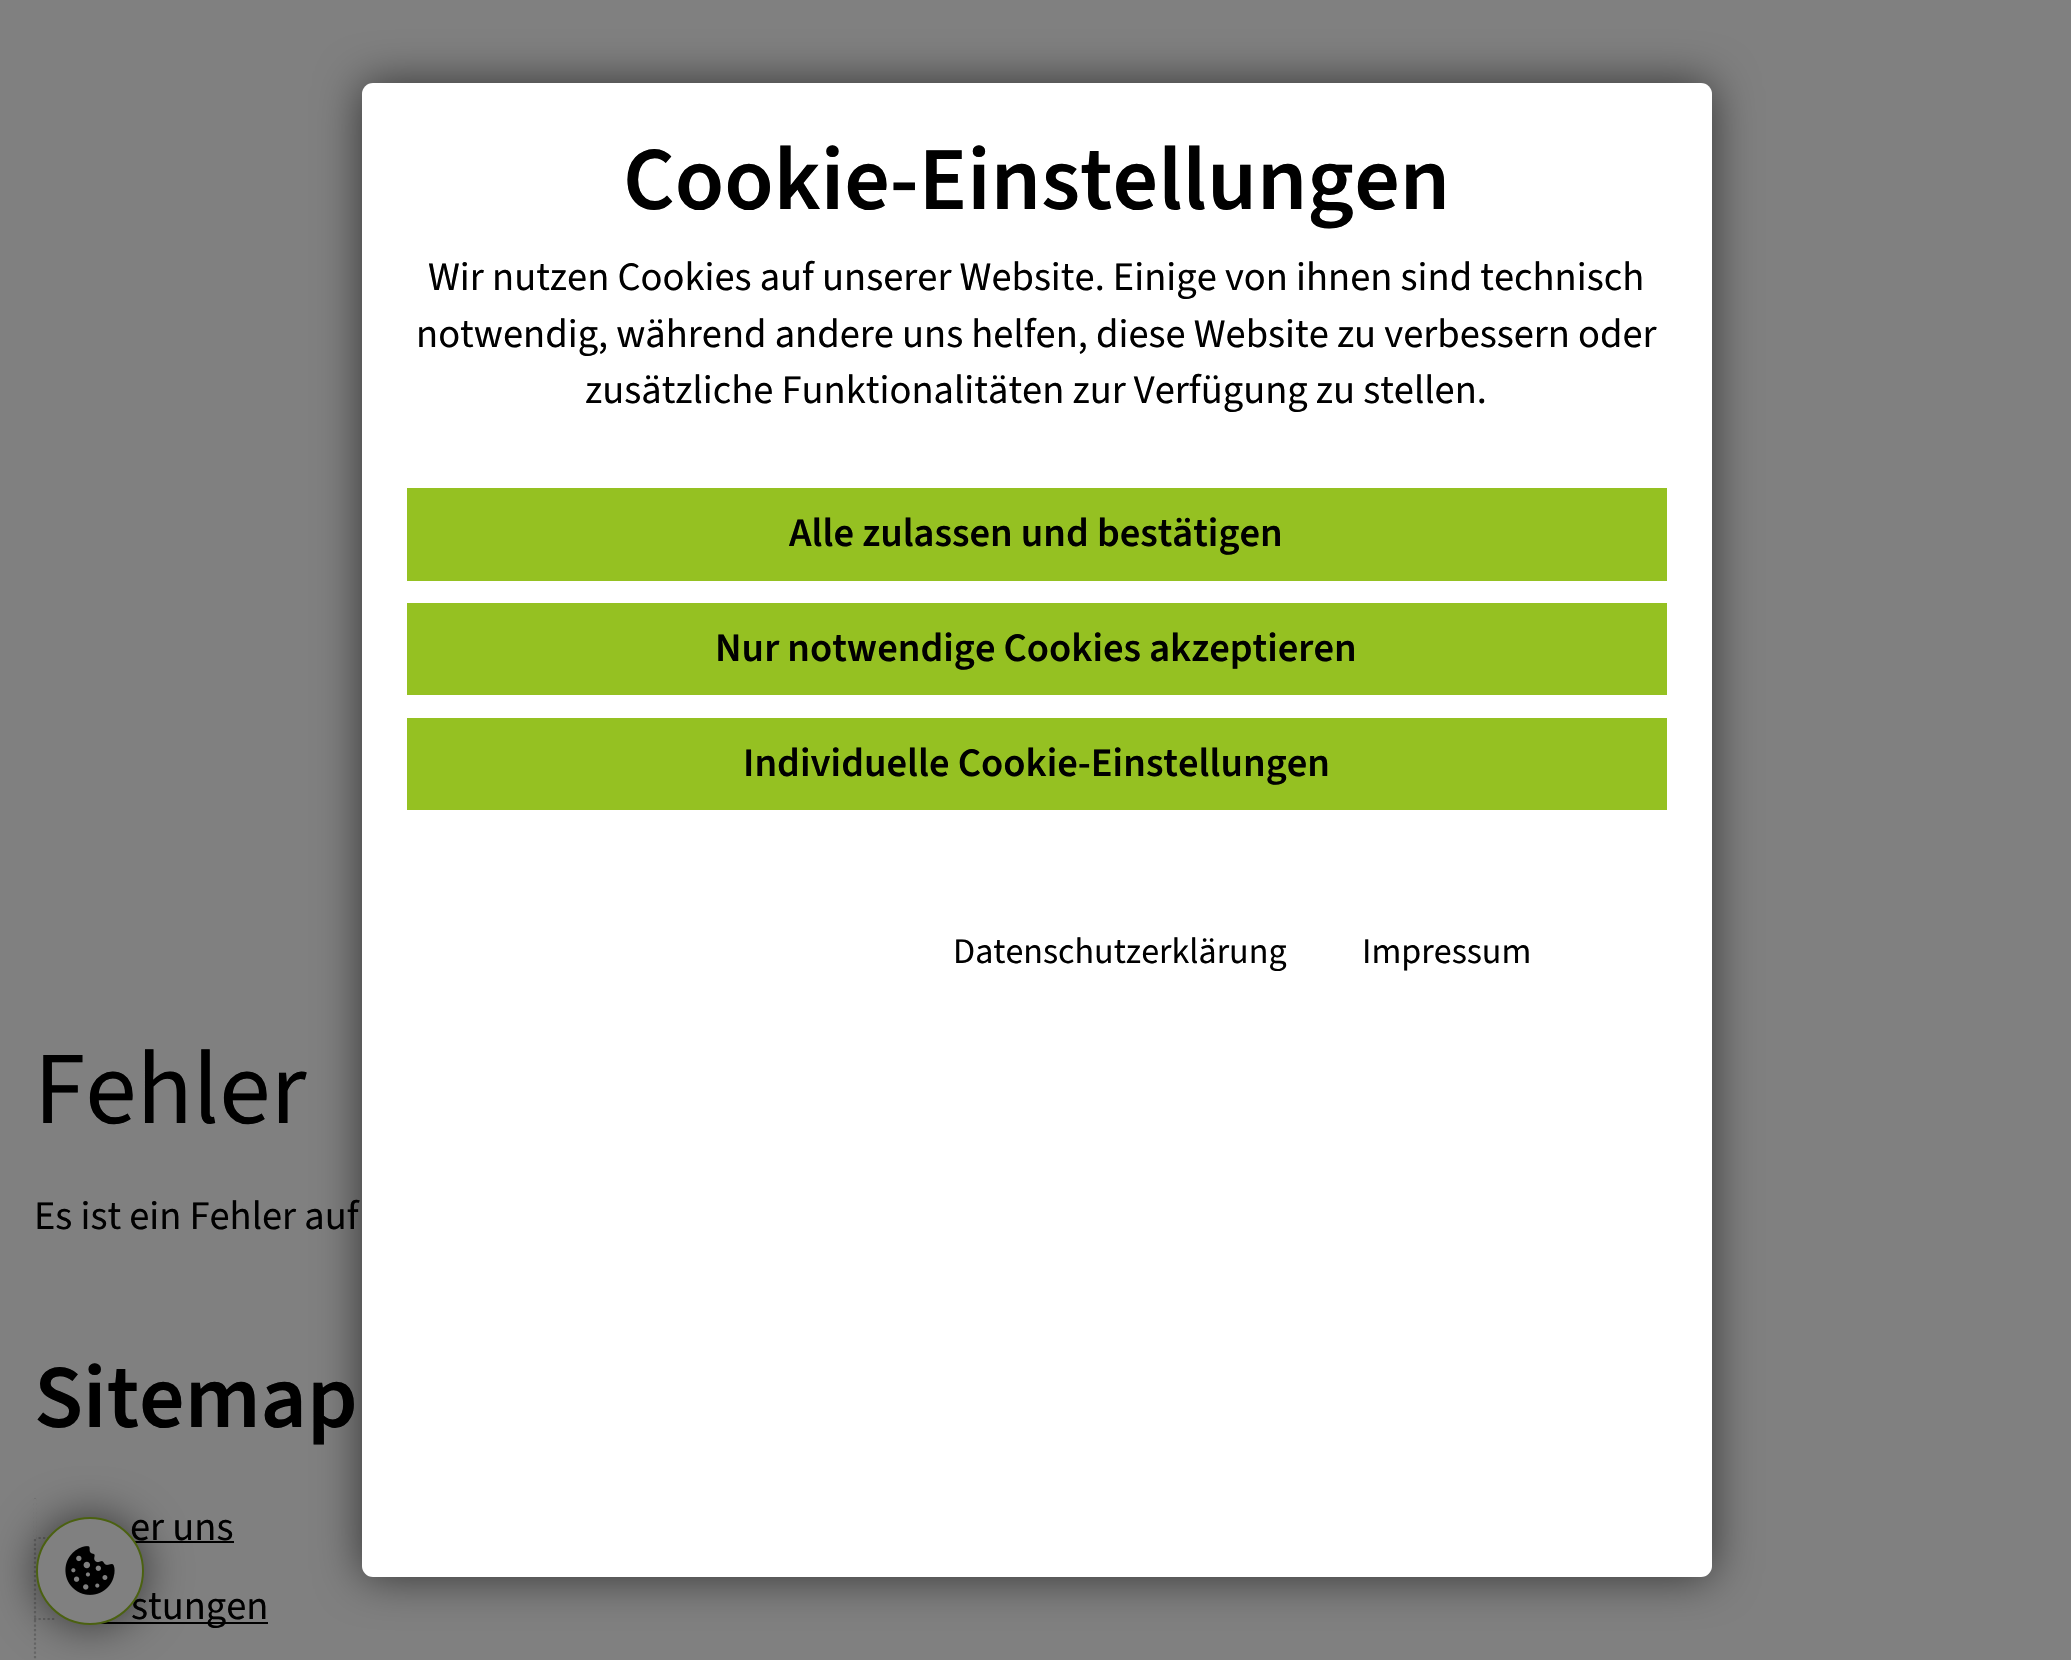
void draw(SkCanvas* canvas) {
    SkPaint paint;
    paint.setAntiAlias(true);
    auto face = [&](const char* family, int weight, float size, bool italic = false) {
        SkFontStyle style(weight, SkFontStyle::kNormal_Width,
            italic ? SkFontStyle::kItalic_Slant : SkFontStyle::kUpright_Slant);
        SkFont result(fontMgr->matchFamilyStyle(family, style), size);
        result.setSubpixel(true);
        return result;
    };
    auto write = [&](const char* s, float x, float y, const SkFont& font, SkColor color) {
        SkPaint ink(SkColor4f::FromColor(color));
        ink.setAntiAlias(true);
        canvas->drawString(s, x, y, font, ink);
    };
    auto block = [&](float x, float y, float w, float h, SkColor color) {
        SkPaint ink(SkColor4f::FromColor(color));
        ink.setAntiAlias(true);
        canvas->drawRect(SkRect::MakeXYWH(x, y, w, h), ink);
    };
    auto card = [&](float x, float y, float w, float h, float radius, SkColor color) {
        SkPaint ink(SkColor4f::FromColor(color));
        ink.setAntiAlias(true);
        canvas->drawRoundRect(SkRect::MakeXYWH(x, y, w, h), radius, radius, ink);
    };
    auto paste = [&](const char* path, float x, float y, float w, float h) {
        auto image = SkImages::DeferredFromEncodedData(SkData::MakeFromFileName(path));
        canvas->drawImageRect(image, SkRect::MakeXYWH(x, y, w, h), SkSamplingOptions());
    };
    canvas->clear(SkColorSetRGB(128, 128, 128));
    paint.setColor(SkColorSetARGB(153, 0, 0, 0));
    paint.setMaskFilter(SkMaskFilter::MakeBlur(kNormal_SkBlurStyle, 22.5f));
    canvas->drawRoundRect(SkRect::MakeXYWH(362, 83, 1350, 1494), 11, 11, paint);
    paint.setMaskFilter(nullptr);
    card(362, 83, 1350, 1494, 11, SK_ColorWHITE);
    auto kFont1 = face("Source Sans 3", 600, 90);
    write("Cookie-Einstellungen", 623, 209, kFont1, SK_ColorBLACK);
    auto kFont2 = face("Source Sans 3", 400, 40.5f);
    write("Wir nutzen Cookies auf unserer Website. Einige von ihnen sind technisch", 428, 290, kFont2, SK_ColorBLACK);
    write("notwendig, während andere uns helfen, diese Website zu verbessern oder", 416, 347, kFont2, SK_ColorBLACK);
    write("zusätzliche Funktionalitäten zur Verfügung zu stellen.", 585, 403, kFont2, SK_ColorBLACK);
    block(407, 488, 1260, 93, SkColorSetRGB(149, 193, 34));
    auto kFont3 = face("Source Sans 3", 600, 40.5f);
    write("Alle zulassen und bestätigen", 789, 546, kFont3, SK_ColorBLACK);
    block(407, 603, 1260, 92, SkColorSetRGB(149, 193, 34));
    write("Nur notwendige Cookies akzeptieren", 715, 661, kFont3, SK_ColorBLACK);
    block(407, 718, 1260, 92, SkColorSetRGB(149, 193, 34));
    write("Individuelle Cookie-Einstellungen", 743, 776, kFont3, SK_ColorBLACK);
    auto kFont4 = face("Source Sans 3", 400, 36);
    write("Datenschutzerklärung", 953, 963, kFont4, SK_ColorBLACK);
    write("Impressum", 1362, 963, kFont4, SK_ColorBLACK);
    auto kFont5 = face("Source Sans 3", 400, 103.5f);
    write("Fehler", 34, 1123, kFont5, SK_ColorBLACK);
    write("Es ist ein Fehler auf", 34, 1229, kFont2, SK_ColorBLACK);
    write("Sitemap", 34, 1427, kFont1, SK_ColorBLACK);
    paint.setStyle(SkPaint::kStroke_Style);
    paint.setStrokeWidth(2.2f);
    paint.setColor(SkColorSetRGB(102, 102, 102));
    paint.setPathEffect(SkDashPathEffect::Make({{2.25f, 2.25f}}, 0));
    canvas->drawPath(SkPathBuilder().moveTo(35, 1498.5f).lineTo(35, 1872).detach(), paint);
    paint.setPathEffect(nullptr);
    paint.setPathEffect(SkDashPathEffect::Make({{2.25f, 2.25f}}, 0));
    canvas->drawPath(SkPathBuilder().moveTo(34, 1538).lineTo(56, 1538).detach(), paint);
    paint.setPathEffect(nullptr);
    block(34, 1499, 2, 40, SkColorSetRGB(128, 128, 128));
    write("er uns", 130, 1540, kFont2, SK_ColorBLACK);
    block(134, 1541, 100, 2, SK_ColorBLACK);
    paint.setPathEffect(SkDashPathEffect::Make({{2.25f, 2.25f}}, 0));
    canvas->drawPath(SkPathBuilder().moveTo(34, 1619).lineTo(56, 1619).detach(), paint);
    paint.setPathEffect(nullptr);
    block(100, 1622, 168, 2, SK_ColorBLACK);
    write("stungen", 131, 1619, kFont2, SK_ColorBLACK);
    paint.setStyle(SkPaint::kFill_Style);
    paint.setColor(SkColorSetARGB(153, 0, 0, 0));
    paint.setMaskFilter(SkMaskFilter::MakeBlur(kNormal_SkBlurStyle, 22.5f));
    canvas->drawRoundRect(SkRect::MakeXYWH(36, 1517, 108, 108), 54, 54, paint);
    paint.setMaskFilter(nullptr);
    paint.setColor(SkColorSetRGB(128, 128, 128));
    canvas->drawCircle(90, 1571, 53, paint);
    paint.setStyle(SkPaint::kStroke_Style);
    paint.setStrokeWidth(2);
    paint.setColor(SkColorSetRGB(75, 97, 17));
    canvas->drawCircle(90, 1571, 53, paint);
    paste("pic1.png", 65, 1546, 50, 49);
}
